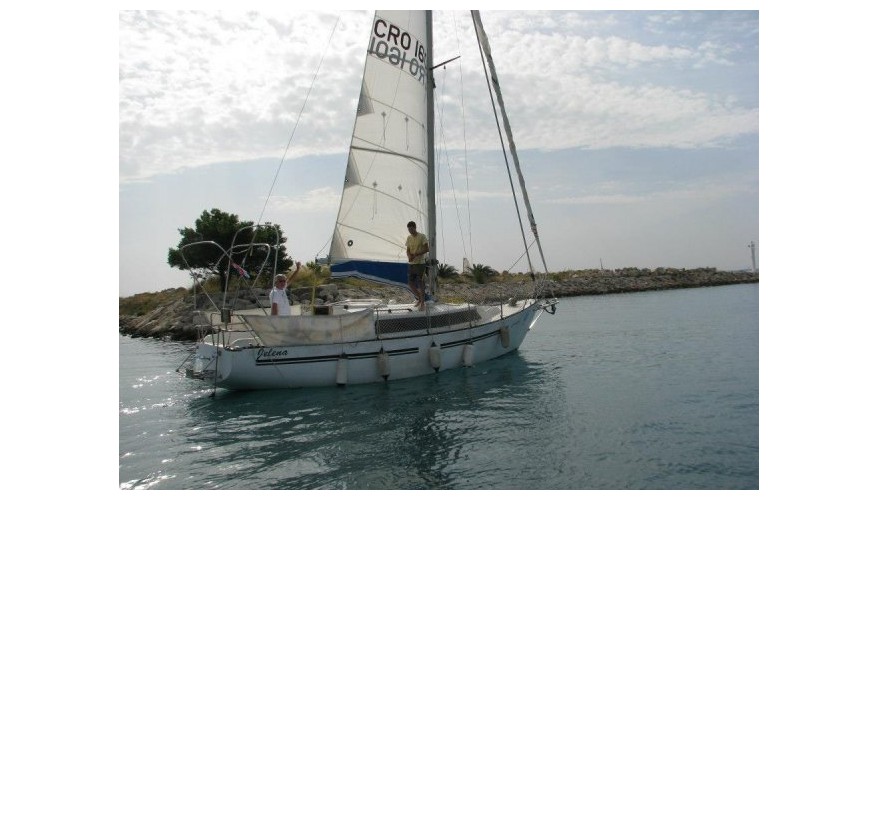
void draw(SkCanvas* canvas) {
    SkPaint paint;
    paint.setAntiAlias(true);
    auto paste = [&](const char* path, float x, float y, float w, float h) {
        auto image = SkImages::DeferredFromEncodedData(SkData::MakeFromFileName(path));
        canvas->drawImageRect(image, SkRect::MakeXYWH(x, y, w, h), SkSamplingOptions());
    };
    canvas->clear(SK_ColorWHITE);
    paste("pic1.png", 119, 10, 640, 480);
}
